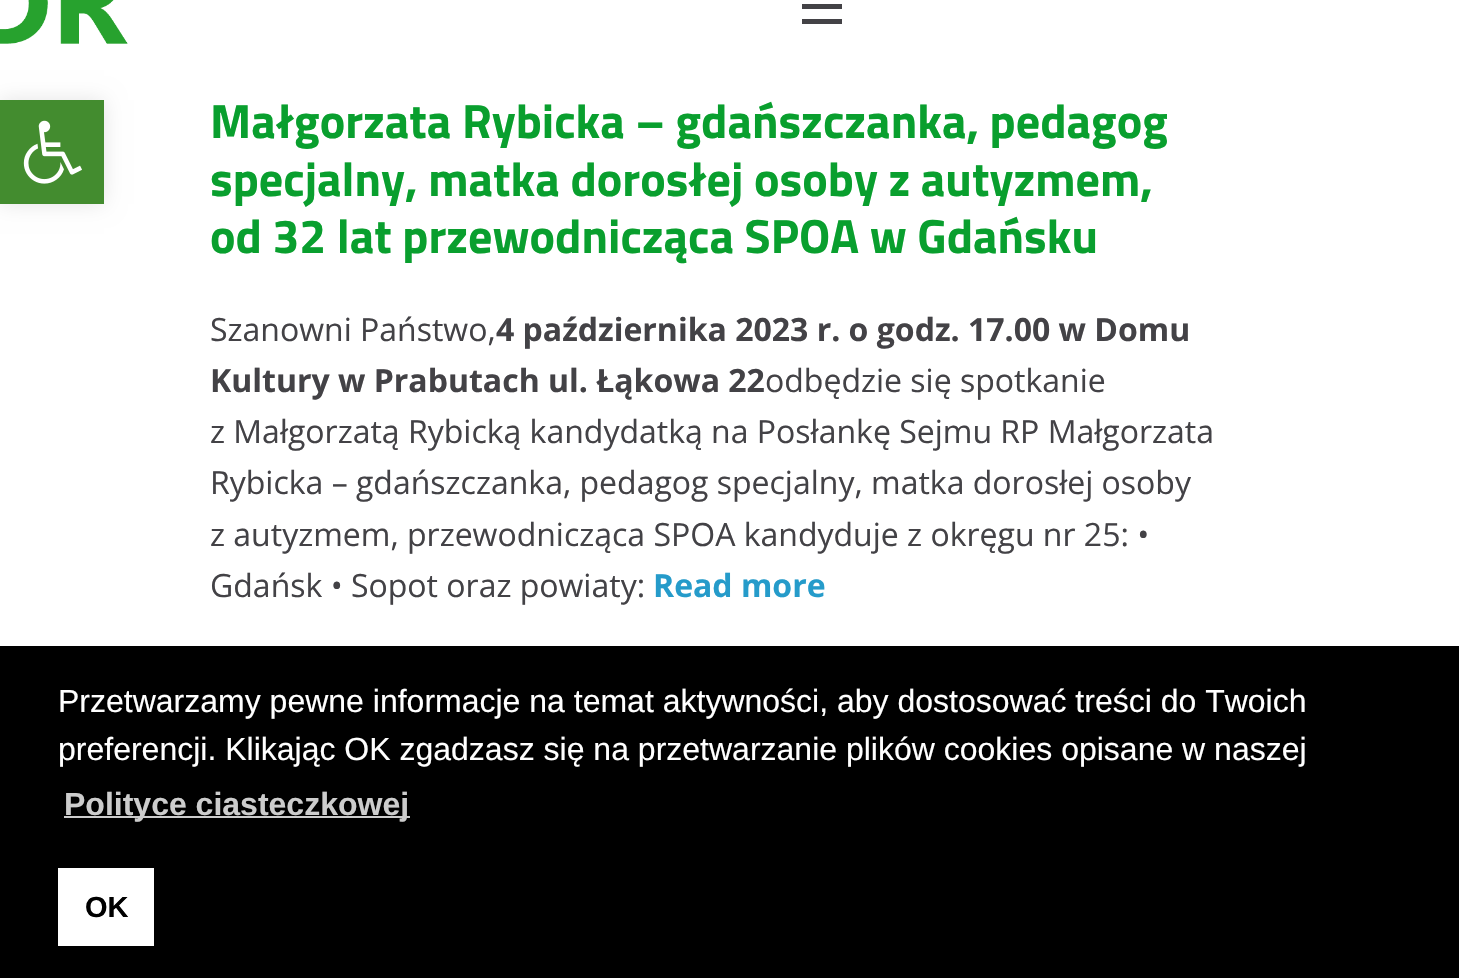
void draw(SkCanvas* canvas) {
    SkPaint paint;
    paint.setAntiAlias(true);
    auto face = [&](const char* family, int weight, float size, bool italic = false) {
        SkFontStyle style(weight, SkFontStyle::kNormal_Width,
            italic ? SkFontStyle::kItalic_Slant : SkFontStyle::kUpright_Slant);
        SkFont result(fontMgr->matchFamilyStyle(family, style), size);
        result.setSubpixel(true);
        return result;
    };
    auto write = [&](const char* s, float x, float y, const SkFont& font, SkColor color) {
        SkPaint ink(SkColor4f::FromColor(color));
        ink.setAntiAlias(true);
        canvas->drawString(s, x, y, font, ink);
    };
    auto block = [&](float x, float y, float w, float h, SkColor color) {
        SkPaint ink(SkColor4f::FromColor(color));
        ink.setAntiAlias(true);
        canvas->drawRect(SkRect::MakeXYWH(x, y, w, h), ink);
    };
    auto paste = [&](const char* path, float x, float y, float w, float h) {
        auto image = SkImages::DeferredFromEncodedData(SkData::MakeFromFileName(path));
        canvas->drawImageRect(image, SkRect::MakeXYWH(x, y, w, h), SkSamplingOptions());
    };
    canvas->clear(SK_ColorWHITE);
    paint.setColor(SkColorSetARGB(26, 0, 0, 0));
    paint.setMaskFilter(SkMaskFilter::MakeBlur(kNormal_SkBlurStyle, 10));
    canvas->drawRect(SkRect::MakeXYWH(0, 100, 104, 104), paint);
    paint.setMaskFilter(nullptr);
    block(0, 100, 104, 104, SkColorSetRGB(67, 140, 47));
    paste("pic1.png", 23, 120, 59, 64);
    paste("pic2.png", 0, 0, 128, 44);
    block(802, 4, 40, 5, SkColorSetRGB(67, 66, 70));
    block(802, 19, 40, 5, SkColorSetRGB(67, 66, 70));
    auto kFont1 = face("Titillium Web", 700, 48);
    write("Małgorzata Rybicka – gdańszczanka, pedagog", 210, 138, kFont1, SkColorSetRGB(9, 159, 46));
    write("specjalny, matka dorosłej osoby z autyzmem,", 210, 196, kFont1, SkColorSetRGB(9, 159, 46));
    write("od 32 lat przewodnicząca SPOA w Gdańsku", 210, 253, kFont1, SkColorSetRGB(9, 159, 46));
    auto kFont2 = face("Open Sans", 400, 32);
    write("Szanowni Państwo,", 210, 341, kFont2, SkColorSetRGB(67, 66, 70));
    auto kFont3 = face("Open Sans", 700, 32);
    write("4 października 2023 r. o godz. 17.00 w Domu", 496, 341, kFont3, SkColorSetRGB(67, 66, 70));
    write("Kultury w Prabutach ul. Łąkowa 22", 210, 392, kFont3, SkColorSetRGB(67, 66, 70));
    write("odbędzie się spotkanie", 765, 392, kFont2, SkColorSetRGB(67, 66, 70));
    write("z Małgorzatą Rybicką kandydatką na Posłankę Sejmu RP Małgorzata", 210, 443, kFont2, SkColorSetRGB(67, 66, 70));
    write("Rybicka – gdańszczanka, pedagog specjalny, matka dorosłej osoby", 210, 494, kFont2, SkColorSetRGB(67, 66, 70));
    write("z autyzmem, przewodnicząca SPOA kandyduje z okręgu nr 25: •", 210, 546, kFont2, SkColorSetRGB(67, 66, 70));
    write("Gdańsk • Sopot oraz powiaty:", 210, 597, kFont2, SkColorSetRGB(67, 66, 70));
    write("Read more", 653, 597, kFont3, SkColorSetRGB(37, 155, 202));
    block(0, 646, 1459, 332, SK_ColorBLACK);
    auto kFont4 = face("Liberation Sans", 400, 32);
    write("Przetwarzamy pewne informacje na temat aktywności, aby dostosować treści do Twoich", 58, 712, kFont4, SK_ColorWHITE);
    write("preferencji. Klikając OK zgadzasz się na przetwarzanie plików cookies opisane w naszej", 58, 760, kFont4, SK_ColorWHITE);
    block(64, 816, 346, 2, SkColorSetRGB(204, 204, 204));
    auto kFont5 = face("Liberation Sans", 700, 32);
    write("Polityce ciasteczkowej", 64, 815, kFont5, SkColorSetRGB(204, 204, 204));
    block(58, 868, 96, 78, SK_ColorWHITE);
    auto kFont6 = face("Liberation Sans", 700, 29);
    write("OK", 85, 917, kFont6, SK_ColorBLACK);
}
